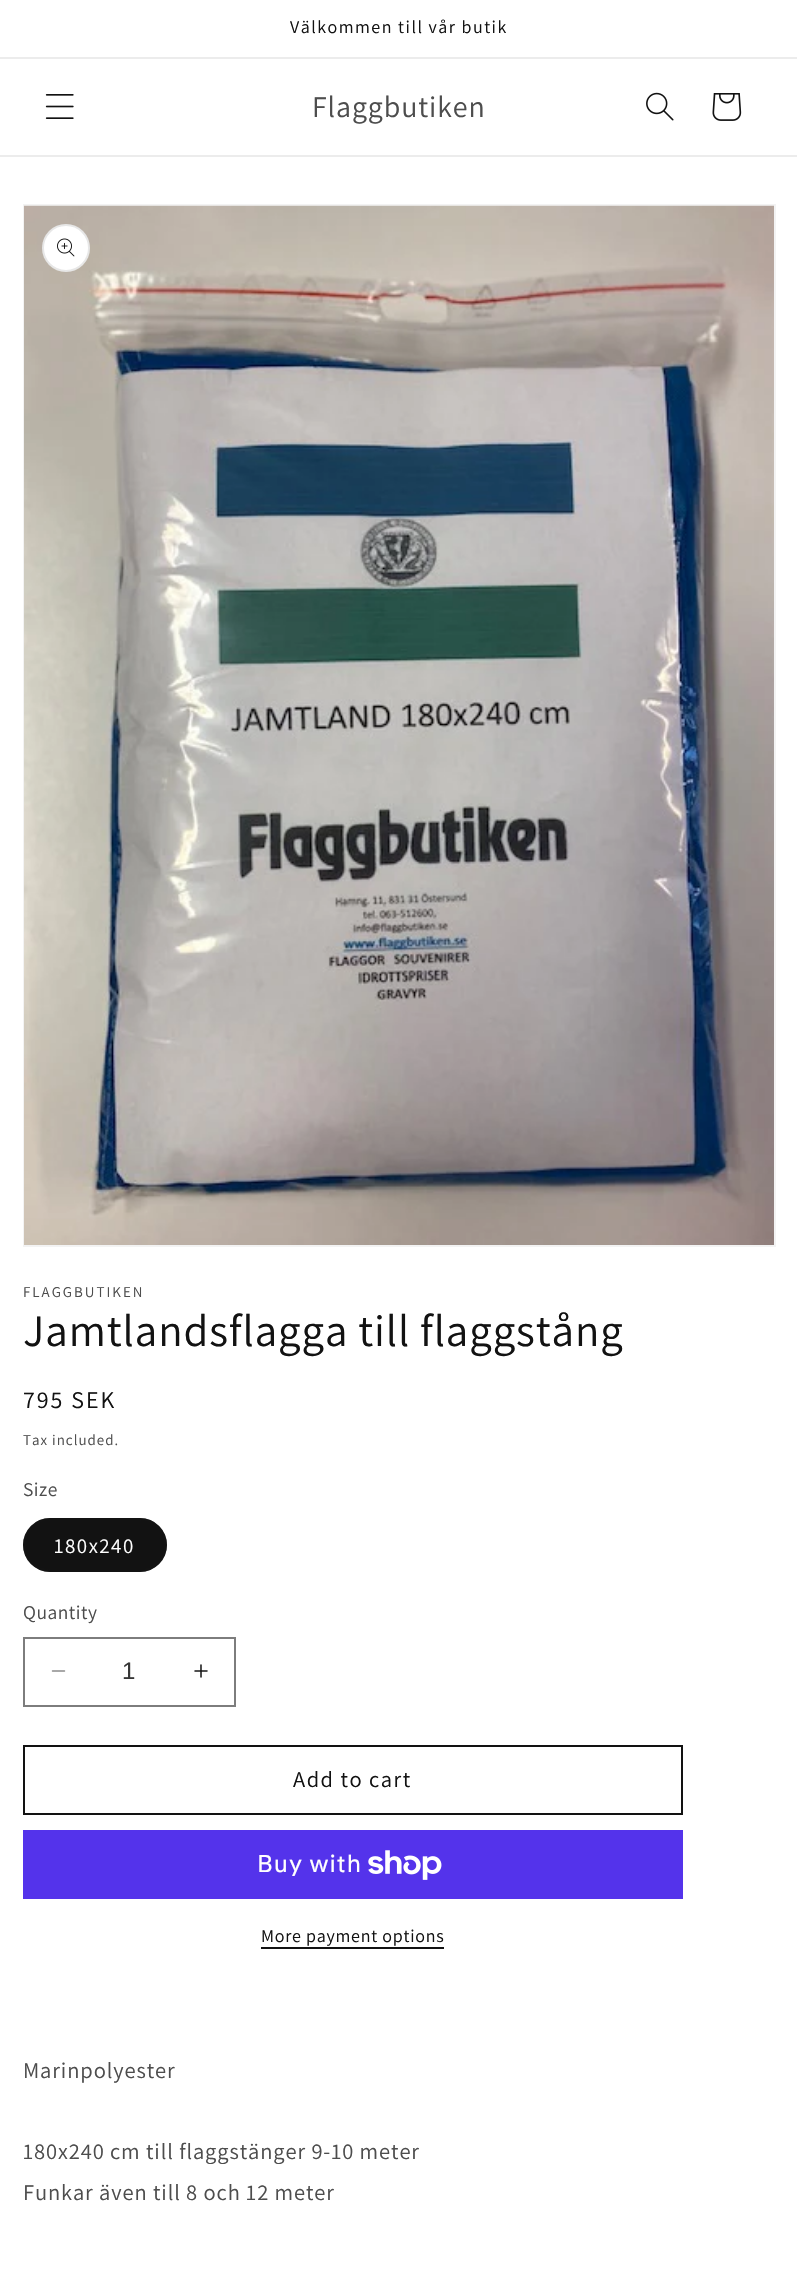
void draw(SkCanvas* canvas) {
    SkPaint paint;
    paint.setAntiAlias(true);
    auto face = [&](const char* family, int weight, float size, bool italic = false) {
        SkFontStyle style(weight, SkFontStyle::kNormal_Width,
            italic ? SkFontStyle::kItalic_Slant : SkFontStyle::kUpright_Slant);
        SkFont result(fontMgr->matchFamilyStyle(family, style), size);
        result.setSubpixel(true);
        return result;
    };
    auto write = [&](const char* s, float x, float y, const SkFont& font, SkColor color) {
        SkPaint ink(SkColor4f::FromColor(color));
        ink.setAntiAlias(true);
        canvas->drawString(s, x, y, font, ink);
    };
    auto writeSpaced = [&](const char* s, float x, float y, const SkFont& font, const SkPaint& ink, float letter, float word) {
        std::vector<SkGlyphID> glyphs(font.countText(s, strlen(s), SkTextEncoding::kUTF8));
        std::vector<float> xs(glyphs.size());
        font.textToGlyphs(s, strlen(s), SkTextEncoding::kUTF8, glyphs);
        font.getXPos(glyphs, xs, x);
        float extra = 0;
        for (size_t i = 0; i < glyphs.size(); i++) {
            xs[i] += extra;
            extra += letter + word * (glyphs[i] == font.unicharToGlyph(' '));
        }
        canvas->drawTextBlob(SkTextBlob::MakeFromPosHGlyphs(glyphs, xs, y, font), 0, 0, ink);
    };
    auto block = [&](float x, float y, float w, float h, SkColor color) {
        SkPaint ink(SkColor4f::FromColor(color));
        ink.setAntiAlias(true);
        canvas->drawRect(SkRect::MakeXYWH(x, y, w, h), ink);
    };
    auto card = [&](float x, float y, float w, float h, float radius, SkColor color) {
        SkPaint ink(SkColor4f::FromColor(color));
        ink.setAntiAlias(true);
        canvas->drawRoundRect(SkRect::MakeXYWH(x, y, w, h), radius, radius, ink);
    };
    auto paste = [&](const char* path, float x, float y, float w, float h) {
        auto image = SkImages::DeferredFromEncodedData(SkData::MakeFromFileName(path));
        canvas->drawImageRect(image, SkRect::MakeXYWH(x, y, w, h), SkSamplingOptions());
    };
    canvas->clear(SK_ColorWHITE);
    block(0, 57, 797, 2, SkColorSetRGB(236, 236, 236));
    auto kFont1 = face("Assistant", 400, 18);
    paint.setColor(SkColorSetRGB(18, 18, 18));
    writeSpaced("Välkommen till vår butik", 290, 33, kFont1, paint, 1.5f, 0);
    block(0, 155, 797, 2, SkColorSetRGB(236, 236, 236));
    paste("pic1.png", 45, 94, 29, 25);
    auto kFont2 = face("Assistant", 400, 30);
    paint.setColor(SkColorSetRGB(77, 77, 77));
    writeSpaced("Flaggbutiken", 312, 117, kFont2, paint, 0.9f, 0);
    paste("pic2.png", 646, 92, 28, 29);
    paste("pic3.png", 712, 93, 30, 28);
    paint.setStyle(SkPaint::kStroke_Style);
    paint.setStrokeWidth(2);
    paint.setColor(SkColorSetRGB(243, 243, 243));
    canvas->drawRect(SkRect::MakeXYWH(24, 205, 751, 1041), paint);
    paste("pic4.png", 24, 205, 750, 1040);
    paint.setStyle(SkPaint::kFill_Style);
    paint.setColor(SK_ColorWHITE);
    canvas->drawCircle(66, 248, 24, paint);
    paint.setStyle(SkPaint::kStroke_Style);
    paint.setColor(SkColorSetARGB(26, 18, 18, 18));
    canvas->drawCircle(66, 248, 23, paint);
    paste("pic5.png", 57, 238, 18, 19);
    auto kFont3 = face("Assistant", 400, 15);
    paint.setStyle(SkPaint::kFill_Style);
    paint.setColor(SkColorSetRGB(77, 77, 77));
    writeSpaced("FLAGGBUTIKEN", 23, 1297, kFont3, paint, 2, 0);
    auto kFont4 = face("Assistant", 400, 45);
    paint.setColor(SkColorSetRGB(18, 18, 18));
    writeSpaced("Jamtlandsflagga till flaggstång", 23, 1346, kFont4, paint, 0.9f, 0);
    auto kFont5 = face("Assistant", 400, 24);
    writeSpaced("795 SEK", 23, 1408, kFont5, paint, 2, 0);
    paint.setColor(SkColorSetRGB(77, 77, 77));
    writeSpaced("Tax included.", 23, 1445, kFont3, paint, 1, 0);
    auto kFont6 = face("Assistant", 400, 19.5f);
    writeSpaced("Size", 23, 1496, kFont6, paint, 0.5f, 0);
    card(23, 1518, 144, 54, 27, SkColorSetRGB(18, 18, 18));
    paint.setStyle(SkPaint::kStroke_Style);
    paint.setColor(SkColorSetARGB(140, 18, 18, 18));
    canvas->drawRoundRect(SkRect::MakeXYWH(24, 1519, 142, 52), 26, 26, paint);
    auto kFont7 = face("Assistant", 400, 21);
    paint.setStyle(SkPaint::kFill_Style);
    paint.setColor(SK_ColorWHITE);
    writeSpaced("180x240", 54, 1553, kFont7, paint, 1.5f, 0);
    paint.setColor(SkColorSetRGB(77, 77, 77));
    writeSpaced("Quantity", 23, 1619, kFont6, paint, 0.5f, 0);
    paste("pic6.png", 51, 1670, 15, 2);
    paste("pic7.png", 194, 1664, 14, 14);
    paint.setStyle(SkPaint::kStroke_Style);
    paint.setColor(SkColorSetRGB(125, 125, 125));
    canvas->drawRect(SkRect::MakeXYWH(24, 1638, 211, 68), paint);
    auto kFont8 = face("Liberation Sans", 400, 24);
    write("1", 122, 1679, kFont8, SkColorSetRGB(54, 54, 54));
    paint.setColor(SkColorSetRGB(18, 18, 18));
    canvas->drawRect(SkRect::MakeXYWH(24, 1746, 658, 68), paint);
    auto kFont9 = face("Assistant", 400, 22.5f);
    paint.setStyle(SkPaint::kFill_Style);
    writeSpaced("Add to cart", 293, 1787, kFont9, paint, 1.5f, 0);
    block(23, 1830, 660, 69, SkColorSetRGB(84, 51, 235));
    auto kFont10 = face("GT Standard", 400, 24);
    paint.setColor(SK_ColorWHITE);
    writeSpaced("Buy with", 257, 1872, kFont10, paint, 0.9f, 0);
    paste("pic8.png", 368, 1850, 74, 30);
    paint.setColor(SkColorSetRGB(18, 18, 18));
    writeSpaced("More payment options", 261, 1942, kFont1, paint, 0.75f, 0);
    block(261, 1947, 183, 2, SkColorSetRGB(18, 18, 18));
    paint.setColor(SkColorSetRGB(77, 77, 77));
    writeSpaced("Marinpolyester", 23, 2078, kFont9, paint, 0.9f, 0);
    writeSpaced("180x240 cm till flaggstänger 9-10 meter", 23, 2159, kFont9, paint, 0.9f, 0);
    writeSpaced("Funkar även till 8 och 12 meter", 23, 2200, kFont9, paint, 0.9f, 0);
}
